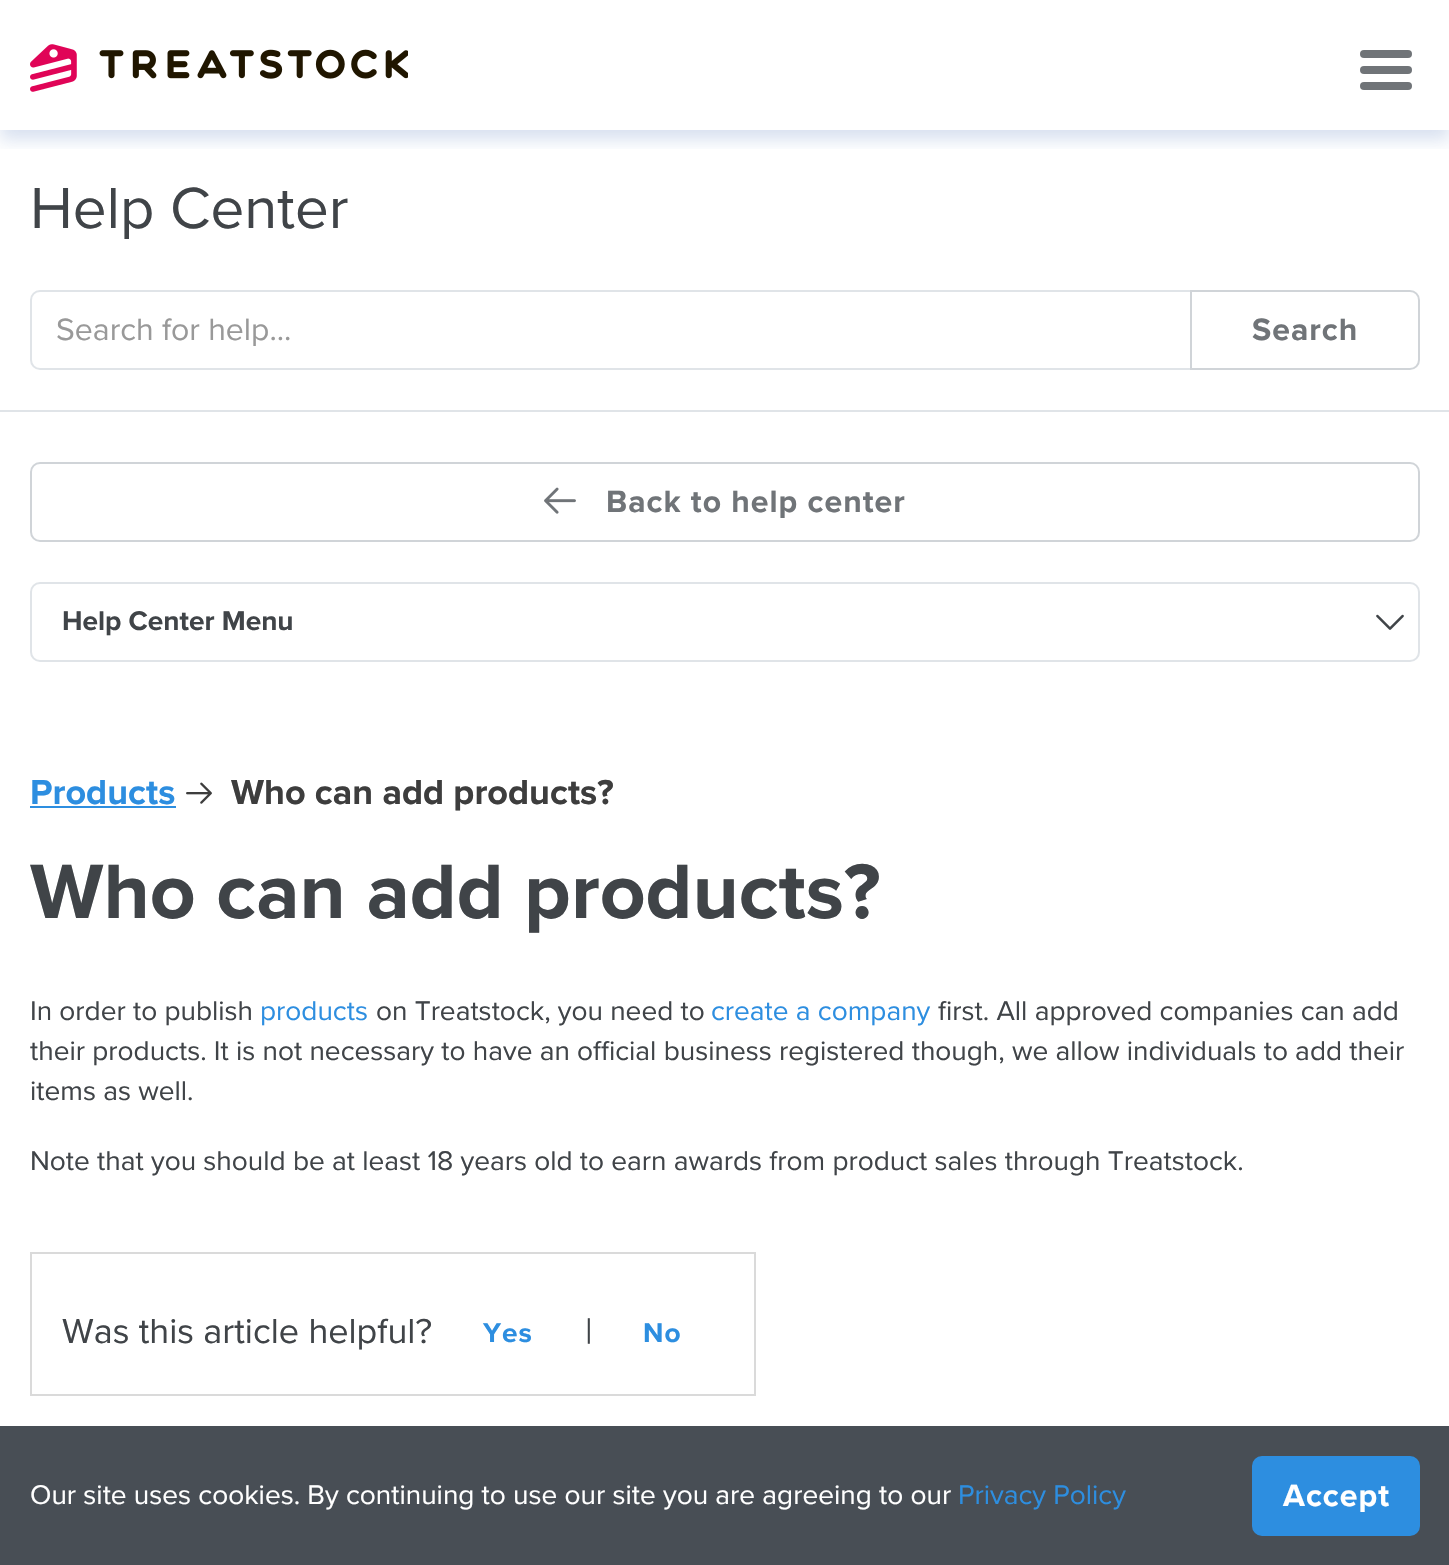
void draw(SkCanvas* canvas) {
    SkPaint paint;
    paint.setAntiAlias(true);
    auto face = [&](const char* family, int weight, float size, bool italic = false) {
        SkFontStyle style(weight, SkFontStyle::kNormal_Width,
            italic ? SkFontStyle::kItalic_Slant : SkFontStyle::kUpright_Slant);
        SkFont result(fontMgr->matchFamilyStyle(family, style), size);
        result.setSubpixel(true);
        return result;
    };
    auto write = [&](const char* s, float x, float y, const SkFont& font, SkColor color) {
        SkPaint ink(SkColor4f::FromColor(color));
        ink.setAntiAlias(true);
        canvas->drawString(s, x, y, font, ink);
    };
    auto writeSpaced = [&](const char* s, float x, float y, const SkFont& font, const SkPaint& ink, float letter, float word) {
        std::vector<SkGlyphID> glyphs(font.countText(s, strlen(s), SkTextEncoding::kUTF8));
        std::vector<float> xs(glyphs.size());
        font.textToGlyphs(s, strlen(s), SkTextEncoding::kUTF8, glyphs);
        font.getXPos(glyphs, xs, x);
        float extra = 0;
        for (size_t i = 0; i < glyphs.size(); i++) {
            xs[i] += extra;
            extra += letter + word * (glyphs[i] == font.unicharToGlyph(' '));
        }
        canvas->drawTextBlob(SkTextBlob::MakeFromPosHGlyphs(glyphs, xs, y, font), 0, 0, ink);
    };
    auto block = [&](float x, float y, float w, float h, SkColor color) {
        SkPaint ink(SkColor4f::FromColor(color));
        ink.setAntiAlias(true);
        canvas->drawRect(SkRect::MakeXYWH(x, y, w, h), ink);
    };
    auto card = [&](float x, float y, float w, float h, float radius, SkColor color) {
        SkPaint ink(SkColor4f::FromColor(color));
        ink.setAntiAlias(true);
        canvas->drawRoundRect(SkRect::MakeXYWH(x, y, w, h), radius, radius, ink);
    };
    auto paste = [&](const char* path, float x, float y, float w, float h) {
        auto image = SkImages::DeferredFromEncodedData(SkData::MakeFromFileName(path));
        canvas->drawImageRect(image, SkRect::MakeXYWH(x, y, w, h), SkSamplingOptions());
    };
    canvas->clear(SK_ColorWHITE);
    block(0, 1426, 1449, 139, SkColorSetRGB(72, 78, 85));
    canvas->save();
    canvas->clipRect(SkRect::MakeXYWH(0, 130, 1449, 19));
    paint.setColor(SkColorSetARGB(38, 0, 54, 153));
    paint.setMaskFilter(SkMaskFilter::MakeBlur(kNormal_SkBlurStyle, 8));
    canvas->drawRect(SkRect::MakeXYWH(0, 10, 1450, 130), paint);
    paint.setMaskFilter(nullptr);
    canvas->restore();
    paste("pic1.png", 30, 44, 378, 48);
    card(1360, 50, 52, 8, 4, SkColorSetRGB(112, 116, 120));
    card(1360, 66, 52, 8, 4, SkColorSetRGB(112, 116, 120));
    card(1360, 82, 52, 8, 4, SkColorSetRGB(112, 116, 120));
    block(0, 410, 1449, 2, SkColorSetRGB(224, 228, 232));
    auto kFont1 = face("Proxima Nova", 400, 60);
    write("Help Center", 30, 228, kFont1, SkColorSetRGB(64, 68, 72));
    paint.setStyle(SkPaint::kStroke_Style);
    paint.setStrokeWidth(2);
    paint.setColor(SkColorSetRGB(224, 228, 232));
    canvas->drawPath(SkPathBuilder().moveTo(40, 291).lineTo(1191, 291).lineTo(1191, 369).lineTo(40, 369).cubicTo(35, 369, 31, 365, 31, 360).lineTo(31, 300).cubicTo(31, 295, 35, 291, 40, 291).close().detach(), paint);
    auto kFont2 = face("Proxima Nova", 400, 32);
    write("Search for help...", 56, 340, kFont2, SkColorSetRGB(153, 153, 153));
    paint.setStyle(SkPaint::kFill_Style);
    paint.setColor(SK_ColorWHITE);
    canvas->drawPath(SkPathBuilder().moveTo(1191, 291).lineTo(1410, 291).cubicTo(1415, 291, 1419, 295, 1419, 300).lineTo(1419, 360).cubicTo(1419, 365, 1415, 369, 1410, 369).lineTo(1191, 369).close().detach(), paint);
    paint.setStyle(SkPaint::kStroke_Style);
    paint.setColor(SkColorSetRGB(208, 212, 216));
    canvas->drawPath(SkPathBuilder().moveTo(1191, 291).lineTo(1410, 291).cubicTo(1415, 291, 1419, 295, 1419, 300).lineTo(1419, 360).cubicTo(1419, 365, 1415, 369, 1410, 369).lineTo(1191, 369).close().detach(), paint);
    auto kFont3 = face("Proxima Nova", 700, 32);
    paint.setStyle(SkPaint::kFill_Style);
    paint.setColor(SkColorSetRGB(112, 116, 120));
    writeSpaced("Search", 1252, 340, kFont3, paint, 1, 0);
    paint.setStyle(SkPaint::kStroke_Style);
    paint.setColor(SkColorSetRGB(208, 212, 216));
    canvas->drawRoundRect(SkRect::MakeXYWH(31, 463, 1388, 78), 9, 9, paint);
    paste("pic2.png", 544, 487, 32, 27);
    paint.setStyle(SkPaint::kFill_Style);
    paint.setColor(SkColorSetRGB(112, 116, 120));
    writeSpaced("Back to help center", 606, 512, kFont3, paint, 1, 0);
    paint.setStyle(SkPaint::kStroke_Style);
    paint.setColor(SkColorSetRGB(224, 228, 232));
    canvas->drawRoundRect(SkRect::MakeXYWH(31, 583, 1388, 78), 9, 9, paint);
    auto kFont4 = face("Proxima Nova", 700, 28);
    write("Help Center Menu", 62, 630, kFont4, SkColorSetRGB(64, 68, 72));
    paste("pic3.png", 1376, 614, 28, 16);
    auto kFont5 = face("Proxima Nova", 700, 36);
    write("Products", 30, 804, kFont5, SkColorSetRGB(45, 142, 224));
    block(30, 806, 146, 2, SkColorSetRGB(45, 142, 224));
    paste("pic4.png", 186, 782, 26, 22);
    write("Who can add products?", 231, 804, kFont5, SkColorSetRGB(61, 61, 61));
    auto kFont6 = face("Proxima Nova", 700, 80);
    write("Who can add products?", 30, 918, kFont6, SkColorSetRGB(64, 68, 72));
    auto kFont7 = face("Proxima Nova", 400, 28);
    write("In order to publish", 30, 1020, kFont7, SkColorSetRGB(64, 68, 72));
    write("products", 260, 1020, kFont7, SkColorSetRGB(45, 142, 224));
    write("on Treatstock, you need to", 376, 1020, kFont7, SkColorSetRGB(64, 68, 72));
    write("create a company", 711, 1020, kFont7, SkColorSetRGB(45, 142, 224));
    write("first. All approved companies can add", 938, 1020, kFont7, SkColorSetRGB(64, 68, 72));
    write("their products. It is not necessary to have an official business registered though, we allow individuals to add their", 30, 1060, kFont7, SkColorSetRGB(64, 68, 72));
    write("items as well.", 30, 1100, kFont7, SkColorSetRGB(64, 68, 72));
    write("Note that you should be at least 18 years old to earn awards from product sales through Treatstock.", 30, 1170, kFont7, SkColorSetRGB(64, 68, 72));
    paint.setColor(SkColorSetRGB(218, 218, 218));
    canvas->drawRect(SkRect::MakeXYWH(31, 1253, 724, 142), paint);
    auto kFont8 = face("Proxima Nova", 400, 36);
    write("Was this article helpful?", 62, 1343, kFont8, SkColorSetRGB(64, 68, 72));
    paint.setStyle(SkPaint::kFill_Style);
    paint.setColor(SkColorSetRGB(45, 142, 224));
    writeSpaced("Yes", 483, 1342, kFont4, paint, 1, 0);
    write("|", 585, 1343, kFont8, SkColorSetRGB(64, 68, 72));
    writeSpaced("No", 643, 1342, kFont4, paint, 1, 0);
    write("Our site uses cookies. By continuing to use our site you are agreeing to our", 30, 1504, kFont7, SK_ColorWHITE);
    write("Privacy Policy", 958, 1504, kFont7, SkColorSetRGB(45, 142, 224));
    canvas->drawRoundRect(SkRect::MakeXYWH(1253, 1457, 166, 78), 9, 9, paint);
    paint.setStyle(SkPaint::kStroke_Style);
    canvas->drawRoundRect(SkRect::MakeXYWH(1253, 1457, 166, 78), 9, 9, paint);
    paint.setStyle(SkPaint::kFill_Style);
    paint.setColor(SK_ColorWHITE);
    writeSpaced("Accept", 1283, 1506, kFont3, paint, 1, 0);
}
